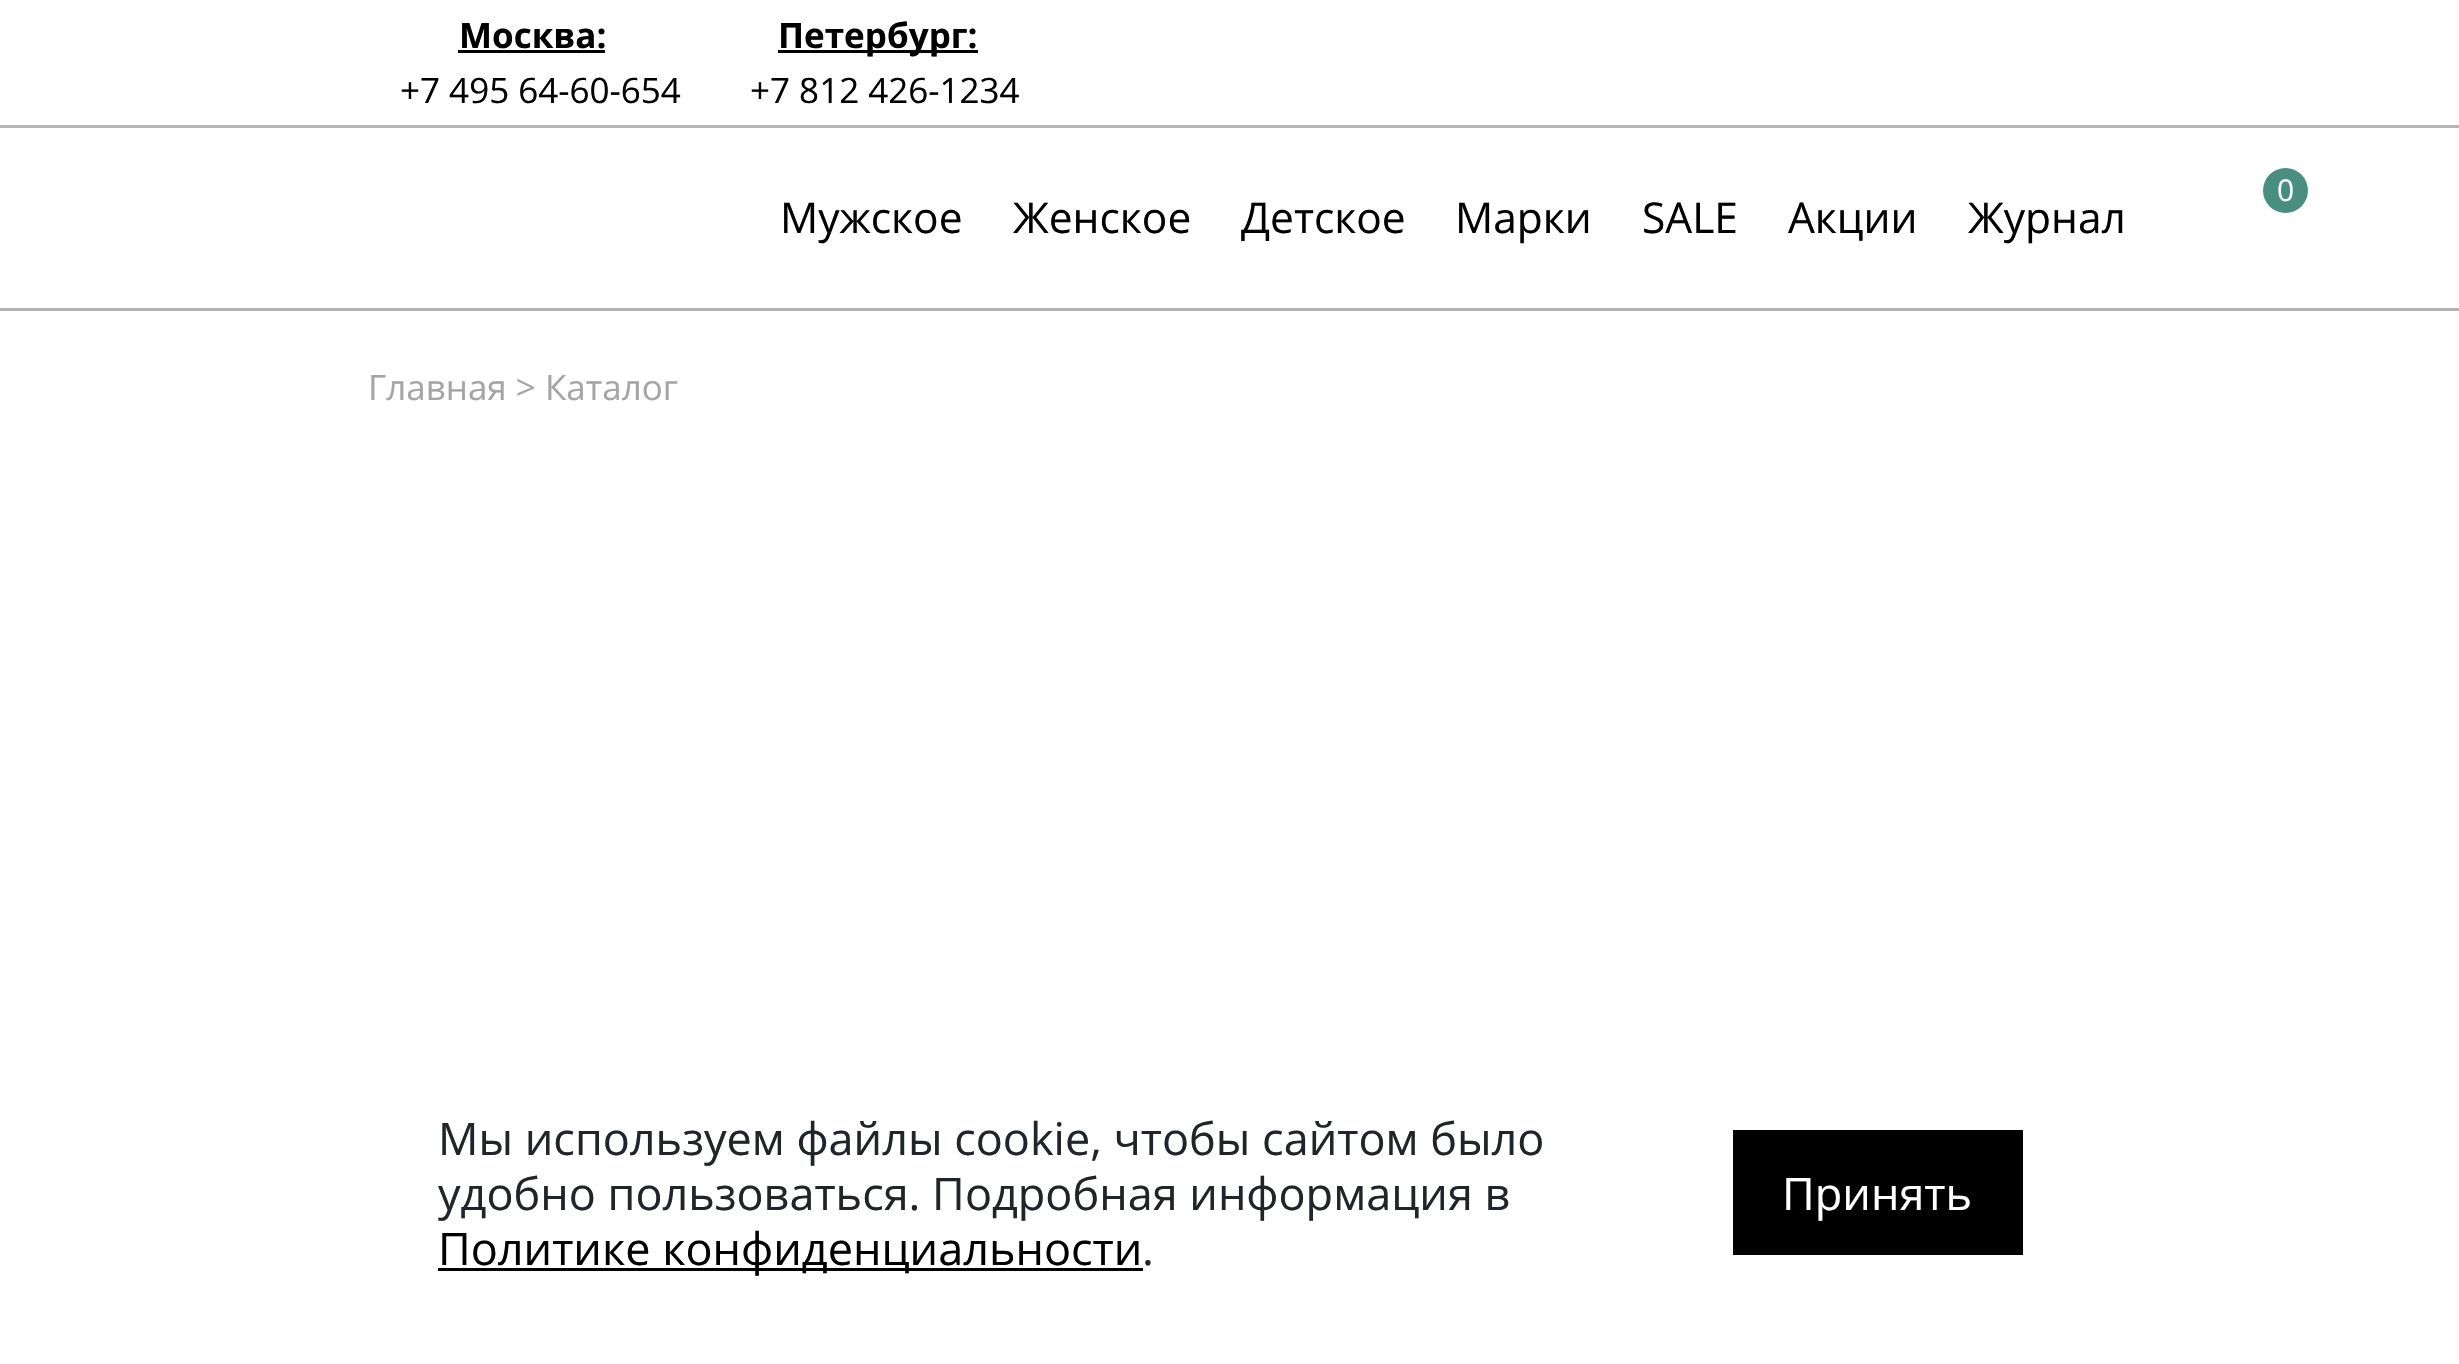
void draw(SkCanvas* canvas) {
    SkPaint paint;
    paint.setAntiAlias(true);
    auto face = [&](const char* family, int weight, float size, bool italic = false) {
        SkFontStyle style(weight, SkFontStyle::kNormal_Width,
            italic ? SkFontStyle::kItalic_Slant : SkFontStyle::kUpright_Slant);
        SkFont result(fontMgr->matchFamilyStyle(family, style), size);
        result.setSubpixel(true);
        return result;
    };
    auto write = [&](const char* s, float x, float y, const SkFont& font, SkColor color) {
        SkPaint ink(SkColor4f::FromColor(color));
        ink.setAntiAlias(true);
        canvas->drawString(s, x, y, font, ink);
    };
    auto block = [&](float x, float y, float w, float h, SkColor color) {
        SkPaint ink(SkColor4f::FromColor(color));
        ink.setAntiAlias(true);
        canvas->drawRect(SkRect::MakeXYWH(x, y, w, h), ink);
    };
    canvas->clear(SK_ColorWHITE);
    auto kFont1 = face("Open Sans", 700, 35);
    write("Москва:", 459, 48, kFont1, SK_ColorBLACK);
    block(458, 50, 147, 3, SK_ColorBLACK);
    auto kFont2 = face("Open Sans", 400, 35);
    write("+7 495 64-60-654", 400, 103, kFont2, SK_ColorBLACK);
    block(778, 50, 200, 3, SK_ColorBLACK);
    write("Петербург:", 778, 48, kFont1, SK_ColorBLACK);
    write("+7 812 426-1234", 750, 103, kFont2, SK_ColorBLACK);
    block(0, 125, 2459, 3, SkColorSetRGB(180, 180, 180));
    block(0, 308, 2459, 3, SkColorSetRGB(180, 180, 180));
    paint.setColor(SkColorSetRGB(72, 143, 129));
    canvas->drawCircle(2285.5f, 190.5f, 22.5f, paint);
    auto kFont3 = face("Open Sans", 400, 30);
    write("0", 2277, 201, kFont3, SK_ColorWHITE);
    auto kFont4 = face("Open Sans", 400, 42.5f);
    write("Мужское", 780, 233, kFont4, SK_ColorBLACK);
    write("Женское", 1013, 233, kFont4, SK_ColorBLACK);
    write("Детское", 1241, 233, kFont4, SK_ColorBLACK);
    write("Марки", 1455, 233, kFont4, SK_ColorBLACK);
    write("SALE", 1642, 233, kFont4, SK_ColorBLACK);
    write("Акции", 1788, 233, kFont4, SK_ColorBLACK);
    write("Журнал", 1968, 233, kFont4, SK_ColorBLACK);
    write("Главная > Каталог", 368, 400, kFont2, SkColorSetRGB(165, 165, 165));
    auto kFont5 = face("Open Sans", 400, 45);
    write("Мы используем файлы cookie, чтобы сайтом было", 438, 1155, kFont5, SkColorSetRGB(33, 37, 41));
    write("удобно пользоваться. Подробная информация в", 438, 1210, kFont5, SkColorSetRGB(33, 37, 41));
    block(438, 1268, 705, 3, SK_ColorBLACK);
    write("Политике конфиденциальности", 438, 1265, kFont5, SK_ColorBLACK);
    write(".", 1142, 1265, kFont5, SkColorSetRGB(33, 37, 41));
    block(1733, 1130, 290, 125, SK_ColorBLACK);
    write("Принять", 1782, 1210, kFont5, SK_ColorWHITE);
}
